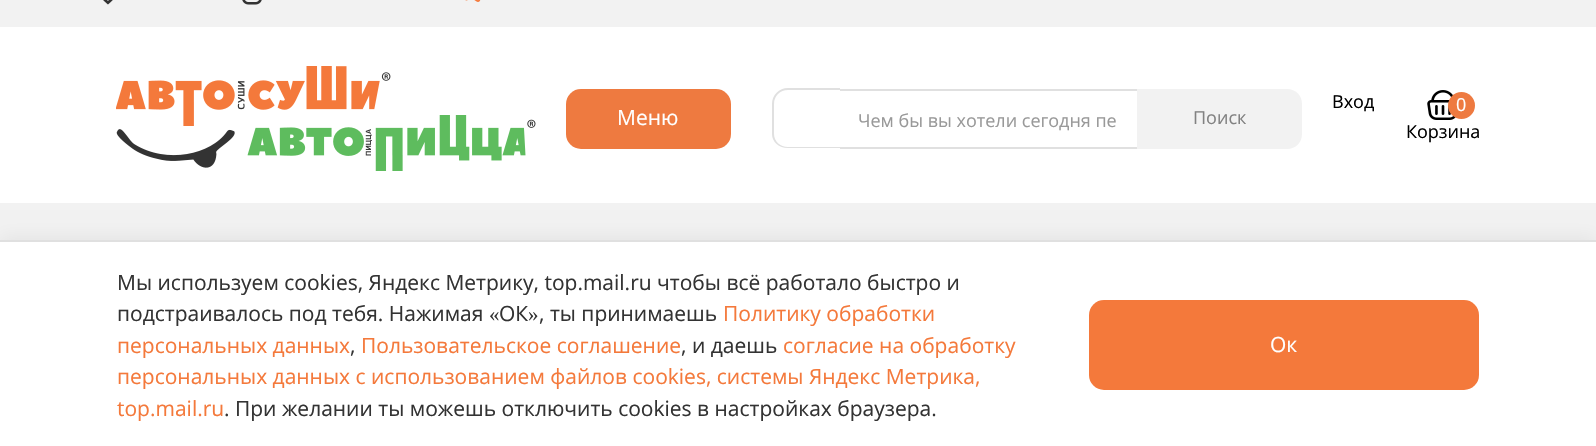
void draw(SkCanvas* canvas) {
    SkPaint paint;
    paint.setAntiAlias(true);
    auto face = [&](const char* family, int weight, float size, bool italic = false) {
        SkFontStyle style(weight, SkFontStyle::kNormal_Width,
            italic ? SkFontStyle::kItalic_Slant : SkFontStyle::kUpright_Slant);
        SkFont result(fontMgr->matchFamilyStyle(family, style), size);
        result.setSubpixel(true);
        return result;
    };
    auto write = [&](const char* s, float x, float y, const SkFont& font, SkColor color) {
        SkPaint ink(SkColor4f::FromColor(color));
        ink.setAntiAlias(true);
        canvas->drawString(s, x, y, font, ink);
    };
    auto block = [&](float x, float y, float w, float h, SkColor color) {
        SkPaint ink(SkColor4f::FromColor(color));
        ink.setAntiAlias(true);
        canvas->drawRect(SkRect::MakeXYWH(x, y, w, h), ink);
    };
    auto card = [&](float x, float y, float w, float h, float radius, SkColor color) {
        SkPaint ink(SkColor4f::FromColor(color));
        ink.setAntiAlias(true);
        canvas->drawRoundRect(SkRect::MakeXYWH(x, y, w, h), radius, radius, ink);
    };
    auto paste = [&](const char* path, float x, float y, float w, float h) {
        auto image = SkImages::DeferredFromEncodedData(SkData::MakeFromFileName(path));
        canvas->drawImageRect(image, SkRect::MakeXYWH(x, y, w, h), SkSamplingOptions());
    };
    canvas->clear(SkColorSetRGB(242, 242, 242));
    paste("pic1.png", 103, 0, 10, 5);
    paste("pic2.png", 242, 0, 20, 5);
    paste("pic3.png", 465, 0, 16, 2);
    block(0, 27, 1596, 176, SK_ColorWHITE);
    paste("pic4.png", 116, 66, 420, 105);
    card(566, 89, 165, 60, 15, SkColorSetRGB(238, 122, 64));
    auto kFont1 = face("Open Sans", 400, 21);
    write("Меню", 617, 125, kFont1, SK_ColorWHITE);
    paint.setColor(SkColorSetRGB(224, 224, 224));
    canvas->drawPath(SkPathBuilder(SkPathFillType::kEvenOdd).moveTo(788, 88).lineTo(840, 88).lineTo(840, 148).lineTo(788, 148).cubicTo(779, 148, 772, 142, 772, 134).lineTo(772, 104).cubicTo(772, 95, 779, 88, 788, 88).close().moveTo(788, 90).lineTo(840, 90).lineTo(840, 147).lineTo(788, 147).cubicTo(780, 147, 774, 141, 774, 134).lineTo(774, 104).cubicTo(774, 96, 780, 90, 788, 90).close().detach(), paint);
    block(840, 89, 299, 2, SkColorSetRGB(224, 224, 224));
    block(840, 147, 299, 2, SkColorSetRGB(224, 224, 224));
    auto kFont2 = face("Open Sans", 400, 18);
    write("Чем бы вы хотели сегодня пе", 858, 127, kFont2, SkColorSetRGB(153, 153, 153));
    paint.setColor(SkColorSetRGB(242, 242, 242));
    canvas->drawPath(SkPathBuilder().moveTo(1137, 89).lineTo(1287, 89).cubicTo(1295.5f, 89, 1302, 95.5f, 1302, 104).lineTo(1302, 134).cubicTo(1302, 142.5f, 1295.5f, 149, 1287, 149).lineTo(1137, 149).close().detach(), paint);
    write("Поиск", 1193, 124, kFont2, SkColorSetRGB(130, 130, 130));
    write("Вход", 1332, 108, kFont2, SK_ColorBLACK);
    paste("pic5.png", 1427, 90, 29, 30);
    paint.setColor(SkColorSetRGB(238, 122, 64));
    canvas->drawCircle(1461.5f, 105.5f, 13.5f, paint);
    write("0", 1456, 111, kFont2, SK_ColorWHITE);
    write("Корзина", 1406, 138, kFont2, SK_ColorBLACK);
    paint.setColor(SkColorSetARGB(15, 0, 0, 0));
    paint.setMaskFilter(SkMaskFilter::MakeBlur(kNormal_SkBlurStyle, 9));
    canvas->drawRect(SkRect::MakeXYWH(0, 237, 1596, 207), paint);
    paint.setMaskFilter(nullptr);
    block(0, 242, 1596, 204, SK_ColorWHITE);
    block(0, 240, 1596, 2, SkColorSetRGB(224, 224, 224));
    write("Мы используем cookies, Яндекс Метрику, top.mail.ru чтобы всё работало быстро и", 117, 290, kFont1, SkColorSetRGB(51, 51, 51));
    write("подстраивалось под тебя. Нажимая", 117, 321, kFont1, SkColorSetRGB(51, 51, 51));
    auto kFont3 = face("Liberation Serif", 400, 21);
    write("«", 489, 321, kFont3, SkColorSetRGB(51, 51, 51));
    write("ОК", 499, 321, kFont1, SkColorSetRGB(51, 51, 51));
    write("»", 528, 321, kFont3, SkColorSetRGB(51, 51, 51));
    write(", ты принимаешь", 539, 321, kFont1, SkColorSetRGB(51, 51, 51));
    write("Политику обработки", 723, 321, kFont1, SkColorSetRGB(244, 121, 59));
    write("персональных данных", 117, 353, kFont1, SkColorSetRGB(244, 121, 59));
    write(",", 350, 353, kFont1, SkColorSetRGB(51, 51, 51));
    write("Пользовательское соглашение", 361, 353, kFont1, SkColorSetRGB(244, 121, 59));
    write(", и даешь", 681, 353, kFont1, SkColorSetRGB(51, 51, 51));
    write("согласие на обработку", 783, 353, kFont1, SkColorSetRGB(244, 121, 59));
    write("персональных данных с использованием файлов cookies, системы Яндекс Метрика,", 117, 384, kFont1, SkColorSetRGB(244, 121, 59));
    write("top.mail.ru", 117, 416, kFont1, SkColorSetRGB(244, 121, 59));
    write(". При желании ты можешь отключить cookies в настройках браузера.", 224, 416, kFont1, SkColorSetRGB(51, 51, 51));
    card(1089, 300, 390, 90, 15, SkColorSetRGB(244, 121, 59));
    write("Ок", 1270, 352, kFont1, SK_ColorWHITE);
}
